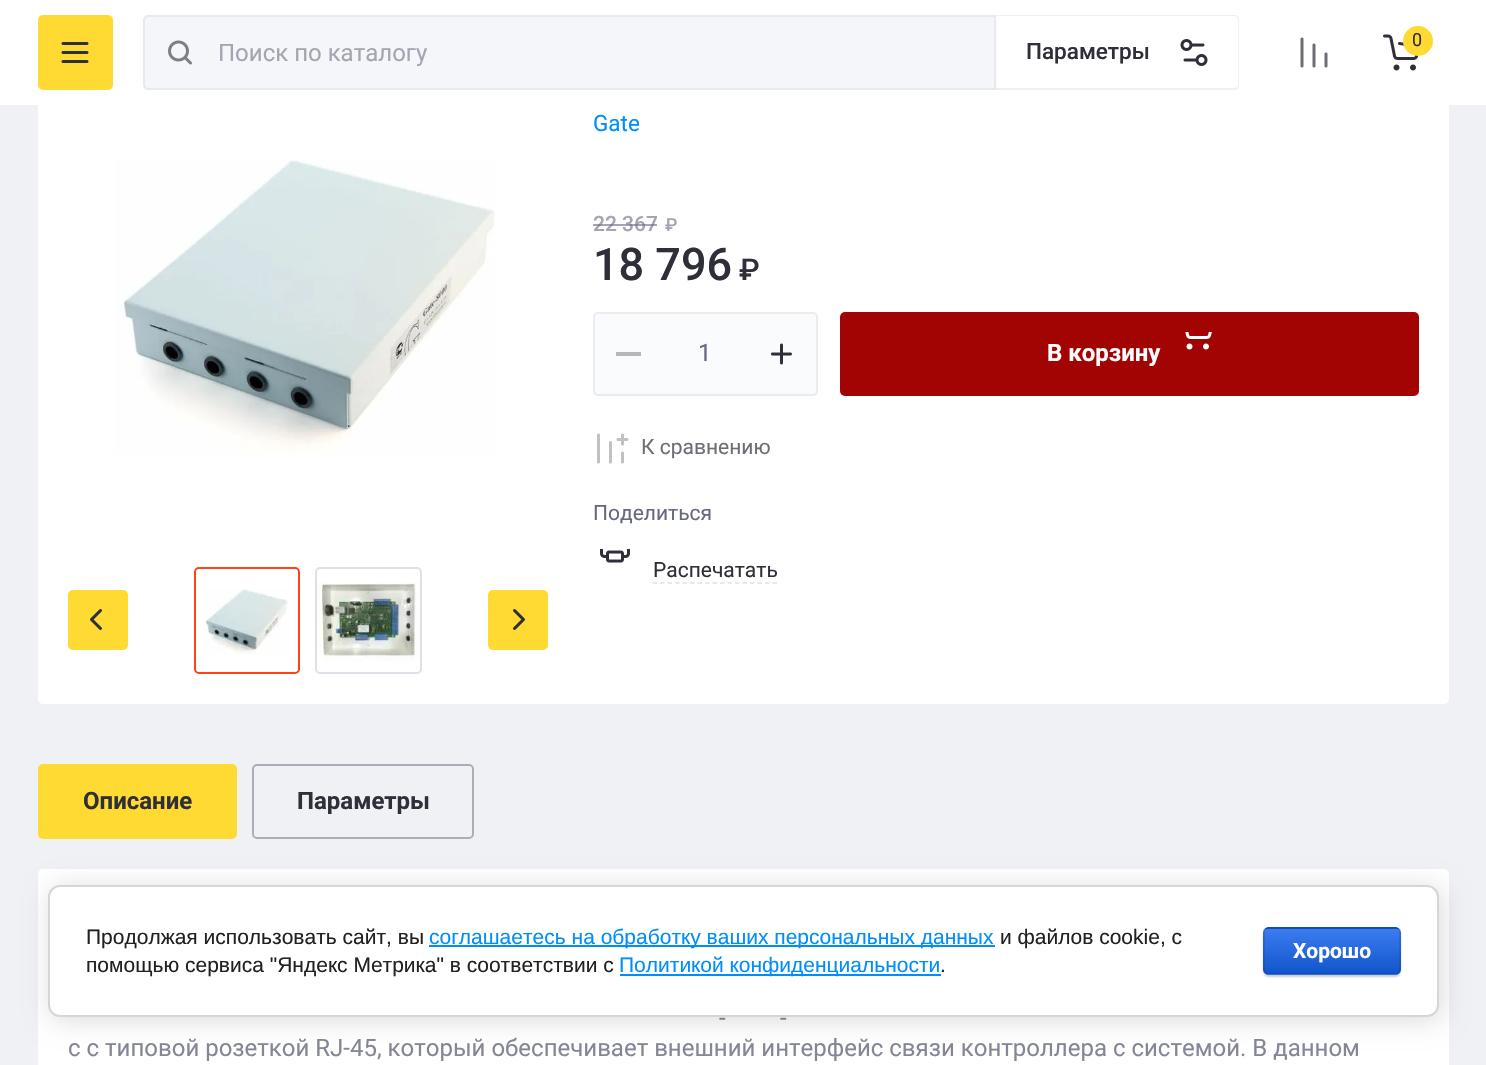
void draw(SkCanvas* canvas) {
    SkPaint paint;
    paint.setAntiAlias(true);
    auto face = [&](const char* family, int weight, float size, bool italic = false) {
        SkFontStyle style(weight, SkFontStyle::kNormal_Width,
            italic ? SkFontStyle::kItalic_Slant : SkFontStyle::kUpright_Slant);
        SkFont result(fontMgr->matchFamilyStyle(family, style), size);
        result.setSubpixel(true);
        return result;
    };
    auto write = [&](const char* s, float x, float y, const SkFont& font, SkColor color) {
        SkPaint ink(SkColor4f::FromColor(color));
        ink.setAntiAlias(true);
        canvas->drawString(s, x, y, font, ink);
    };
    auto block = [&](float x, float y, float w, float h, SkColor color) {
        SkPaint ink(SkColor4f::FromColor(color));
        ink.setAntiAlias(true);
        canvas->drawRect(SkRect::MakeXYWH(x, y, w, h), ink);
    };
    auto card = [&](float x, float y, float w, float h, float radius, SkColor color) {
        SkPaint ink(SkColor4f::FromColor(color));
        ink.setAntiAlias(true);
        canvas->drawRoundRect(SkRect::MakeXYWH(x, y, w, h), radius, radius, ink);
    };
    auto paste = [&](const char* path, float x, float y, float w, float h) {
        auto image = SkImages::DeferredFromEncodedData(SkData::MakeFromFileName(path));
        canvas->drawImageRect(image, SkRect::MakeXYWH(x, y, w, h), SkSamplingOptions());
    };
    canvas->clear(SkColorSetRGB(240, 241, 244));
    card(38, 27, 1411, 677, 5, SK_ColorWHITE);
    block(0, 0, 1486, 105, SK_ColorWHITE);
    card(38, 15, 75, 75, 5, SkColorSetRGB(255, 218, 51));
    paste("pic1.png", 61, 42, 28, 21);
    paste("pic2.png", 1300, 37, 28, 31);
    paste("pic3.png", 1383, 34, 36, 37);
    paint.setColor(SkColorSetRGB(255, 218, 51));
    canvas->drawCircle(1418, 41, 15, paint);
    auto kFont1 = face("Roboto", 400, 18);
    write("0", 1412, 46, kFont1, SkColorSetRGB(46, 47, 56));
    paint.setColor(SkColorSetRGB(245, 246, 249));
    canvas->drawPath(SkPathBuilder().moveTo(148, 15).lineTo(996, 15).lineTo(996, 90).lineTo(148, 90).cubicTo(145, 90, 143, 88, 143, 85).lineTo(143, 20).cubicTo(143, 17, 145, 15, 148, 15).close().detach(), paint);
    paint.setStyle(SkPaint::kStroke_Style);
    paint.setStrokeWidth(2);
    paint.setColor(SkColorSetARGB(51, 177, 178, 199));
    canvas->drawPath(SkPathBuilder().moveTo(148, 16).lineTo(995, 16).lineTo(995, 89).lineTo(148, 89).cubicTo(146, 89, 144, 87, 144, 85).lineTo(144, 20).cubicTo(144, 18, 146, 16, 148, 16).close().detach(), paint);
    paste("pic4.png", 168, 40, 24, 25);
    auto kFont2 = face("Roboto", 400, 24);
    write("Поиск по каталогу", 218, 61, kFont2, SkColorSetRGB(164, 165, 178));
    paint.setStyle(SkPaint::kFill_Style);
    paint.setColor(SkColorSetRGB(239, 240, 244));
    canvas->drawPath(SkPathBuilder(SkPathFillType::kEvenOdd).moveTo(996, 15).lineTo(1234, 15).cubicTo(1237, 15, 1239, 17, 1239, 20).lineTo(1239, 86).cubicTo(1239, 88, 1237, 90, 1234, 90).lineTo(996, 90).close().moveTo(996, 16).lineTo(1234, 16).cubicTo(1236, 16, 1238, 18, 1238, 20).lineTo(1238, 86).cubicTo(1238, 87, 1236, 88, 1234, 88).lineTo(996, 88).close().detach(), paint);
    auto kFont3 = face("Roboto", 500, 22.5f);
    write("Параметры", 1026, 59, kFont3, SkColorSetRGB(46, 47, 56));
    paste("pic5.png", 1180, 39, 28, 27);
    paste("pic6.png", 115, 160, 380, 295);
    card(68, 590, 60, 60, 5, SkColorSetRGB(255, 218, 51));
    paste("pic7.png", 90, 609, 12, 21);
    card(488, 590, 60, 60, 5, SkColorSetRGB(255, 218, 51));
    paste("pic8.png", 513, 609, 12, 21);
    paste("pic9.png", 205, 589, 84, 66);
    paint.setStyle(SkPaint::kStroke_Style);
    paint.setColor(SkColorSetRGB(255, 65, 20));
    canvas->drawRoundRect(SkRect::MakeXYWH(195, 568, 104, 105), 4, 4, paint);
    paste("pic10.png", 315, 582, 106, 80);
    paint.setColor(SkColorSetARGB(102, 177, 178, 199));
    canvas->drawRoundRect(SkRect::MakeXYWH(316, 568, 105, 105), 4, 4, paint);
    auto kFont4 = face("Roboto", 400, 22.5f);
    write("Gate", 593, 131, kFont4, SkColorSetRGB(0, 142, 252));
    auto kFont5 = face("Roboto", 500, 21);
    write("22 367", 593, 231, kFont5, SkColorSetRGB(164, 165, 178));
    block(593, 224, 64, 2, SkColorSetARGB(153, 103, 105, 126));
    auto kFont6 = face("Roboto", 500, 18);
    write("₽", 665, 231, kFont6, SkColorSetRGB(164, 165, 178));
    auto kFont7 = face("Roboto", 500, 45);
    write("18 796", 593, 280, kFont7, SkColorSetRGB(46, 47, 56));
    auto kFont8 = face("Roboto", 500, 30);
    write("₽", 739, 280, kFont8, SkColorSetRGB(46, 47, 56));
    paint.setStyle(SkPaint::kFill_Style);
    paint.setColor(SkColorSetRGB(250, 251, 252));
    canvas->drawRoundRect(SkRect::MakeXYWH(594, 313, 223, 82), 4, 4, paint);
    paint.setStyle(SkPaint::kStroke_Style);
    paint.setColor(SkColorSetRGB(235, 236, 241));
    canvas->drawRoundRect(SkRect::MakeXYWH(594, 313, 223, 82), 4, 4, paint);
    block(616, 352, 25, 4, SkColorSetRGB(182, 183, 186));
    write("1", 698, 361, kFont2, SkColorSetRGB(103, 105, 126));
    paste("pic11.png", 771, 343, 21, 22);
    card(840, 312, 579, 84, 5, SkColorSetRGB(162, 4, 4));
    paste("pic12.png", 1185, 332, 27, 18);
    auto kFont9 = face("Roboto", 700, 24);
    write("В корзину", 1047, 361, kFont9, SK_ColorWHITE);
    paste("pic13.png", 597, 433, 32, 31);
    auto kFont10 = face("Roboto", 400, 21);
    write("К сравнению", 641, 454, kFont10, SkColorSetRGB(109, 109, 116));
    write("Поделиться", 593, 520, kFont10, SkColorSetRGB(103, 105, 126));
    paste("pic14.png", 600, 549, 30, 14);
    write("Распечатать", 653, 577, kFont10, SkColorSetRGB(46, 47, 56));
    paint.setStrokeWidth(1.5f);
    paint.setColor(SkColorSetRGB(224, 224, 233));
    paint.setPathEffect(SkDashPathEffect::Make({{4.5f, 3}}, 0));
    canvas->drawPath(SkPathBuilder().moveTo(652.5f, 583).lineTo(777, 583).detach(), paint);
    paint.setPathEffect(nullptr);
    card(38, 764, 199, 75, 5, SkColorSetRGB(255, 218, 51));
    write("Описание", 83, 809, kFont9, SkColorSetRGB(46, 47, 56));
    paint.setStrokeWidth(2);
    paint.setColor(SkColorSetRGB(172, 173, 185));
    canvas->drawRoundRect(SkRect::MakeXYWH(253, 765, 220, 73), 4, 4, paint);
    write("Параметры", 297, 809, kFont9, SkColorSetRGB(46, 47, 56));
    card(38, 869, 1411, 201, 5, SK_ColorWHITE);
    write("-", 719, 1026, kFont2, SkColorSetRGB(133, 135, 152));
    write("-", 780, 1026, kFont2, SkColorSetRGB(133, 135, 152));
    write("с с типовой розеткой RJ-45, который обеспечивает внешний интерфейс связи контроллера с системой. В данном", 68, 1056, kFont2, SkColorSetRGB(133, 135, 152));
    paint.setStyle(SkPaint::kFill_Style);
    paint.setColor(SkColorSetARGB(36, 0, 0, 0));
    paint.setMaskFilter(SkMaskFilter::MakeBlur(kNormal_SkBlurStyle, 13.5f));
    canvas->drawRoundRect(SkRect::MakeXYWH(51, 888, 1391, 132), 12, 12, paint);
    paint.setMaskFilter(nullptr);
    paint.setColor(SK_ColorWHITE);
    canvas->drawRoundRect(SkRect::MakeXYWH(49, 886, 1389, 130), 11, 11, paint);
    paint.setStyle(SkPaint::kStroke_Style);
    paint.setColor(SkColorSetRGB(214, 214, 214));
    canvas->drawRoundRect(SkRect::MakeXYWH(49, 886, 1389, 130), 11, 11, paint);
    auto kFont11 = face("Liberation Sans", 400, 21);
    write("Продолжая использовать сайт, вы", 86, 944, kFont11, SkColorSetRGB(33, 33, 33));
    block(429, 945, 566, 2, SkColorSetRGB(0, 142, 252));
    write("соглашаетесь на обработку ваших персональных данных", 429, 944, kFont11, SkColorSetRGB(0, 142, 252));
    write("и файлов cookie, с", 1000, 944, kFont11, SkColorSetRGB(33, 33, 33));
    write("помощью сервиса \"Яндекс Метрика\" в соответствии с", 86, 972, kFont11, SkColorSetRGB(33, 33, 33));
    block(620, 974, 321, 2, SkColorSetRGB(0, 142, 252));
    write("Политикой конфиденциальности", 619, 972, kFont11, SkColorSetRGB(0, 142, 252));
    write(".", 940, 972, kFont11, SkColorSetRGB(33, 33, 33));
    paint.setStyle(SkPaint::kFill_Style);
    paint.setColor(SkColorSetARGB(51, 0, 0, 0));
    paint.setMaskFilter(SkMaskFilter::MakeBlur(kNormal_SkBlurStyle, 1));
    canvas->drawRoundRect(SkRect::MakeXYWH(1263, 929, 138, 48), 6, 6, paint);
    paint.setMaskFilter(nullptr);
    canvas->save();
    canvas->clipPath(SkPathBuilder().moveTo(1269, 927).lineTo(1395, 927).cubicTo(1398.5f, 927, 1401, 929.5f, 1401, 933).lineTo(1401, 969).cubicTo(1401, 972.5f, 1398.5f, 975, 1395, 975).lineTo(1269, 975).cubicTo(1265.5f, 975, 1263, 972.5f, 1263, 969).lineTo(1263, 933).cubicTo(1263, 929.5f, 1265.5f, 927, 1269, 927).close().detach(), true);
    {
        const SkColor colors[] = {SkColorSetRGB(59, 124, 239), SkColorSetRGB(17, 85, 204)};
        const float stops[] = {0, 1};
        const SkPoint ends[] = {{1332, 884}, {1332, 929}};
        paint.setShader(SkGradientShader::MakeLinear(ends, colors, stops, 2, SkTileMode::kClamp));
        paint.setAlpha(255);
    }
    canvas->drawRect(SkRect::MakeXYWH(1263, 927, 138, 2), paint);
    {
        const SkColor colors[] = {SkColorSetRGB(59, 124, 239), SkColorSetRGB(17, 85, 204)};
        const float stops[] = {0, 1};
        const SkPoint ends[] = {{1332, 929}, {1332, 974}};
        paint.setShader(SkGradientShader::MakeLinear(ends, colors, stops, 2, SkTileMode::kClamp));
        paint.setAlpha(255);
    }
    canvas->drawRect(SkRect::MakeXYWH(1263, 929, 138, 45), paint);
    {
        const SkColor colors[] = {SkColorSetRGB(59, 124, 239), SkColorSetRGB(17, 85, 204)};
        const float stops[] = {0, 1};
        const SkPoint ends[] = {{1332, 974}, {1332, 1019}};
        paint.setShader(SkGradientShader::MakeLinear(ends, colors, stops, 2, SkTileMode::kClamp));
        paint.setAlpha(255);
    }
    canvas->drawRect(SkRect::MakeXYWH(1263, 974, 138, 1), paint);
    canvas->restore();
    paint.setStyle(SkPaint::kStroke_Style);
    paint.setShader(nullptr);
    paint.setColor(SkColorSetARGB(26, 0, 0, 0));
    canvas->drawRoundRect(SkRect::MakeXYWH(1264, 928, 136, 46), 5, 5, paint);
    auto kFont12 = face("Roboto", 700, 21);
    write("Хорошо", 1293, 958, kFont12, SK_ColorWHITE);
}
